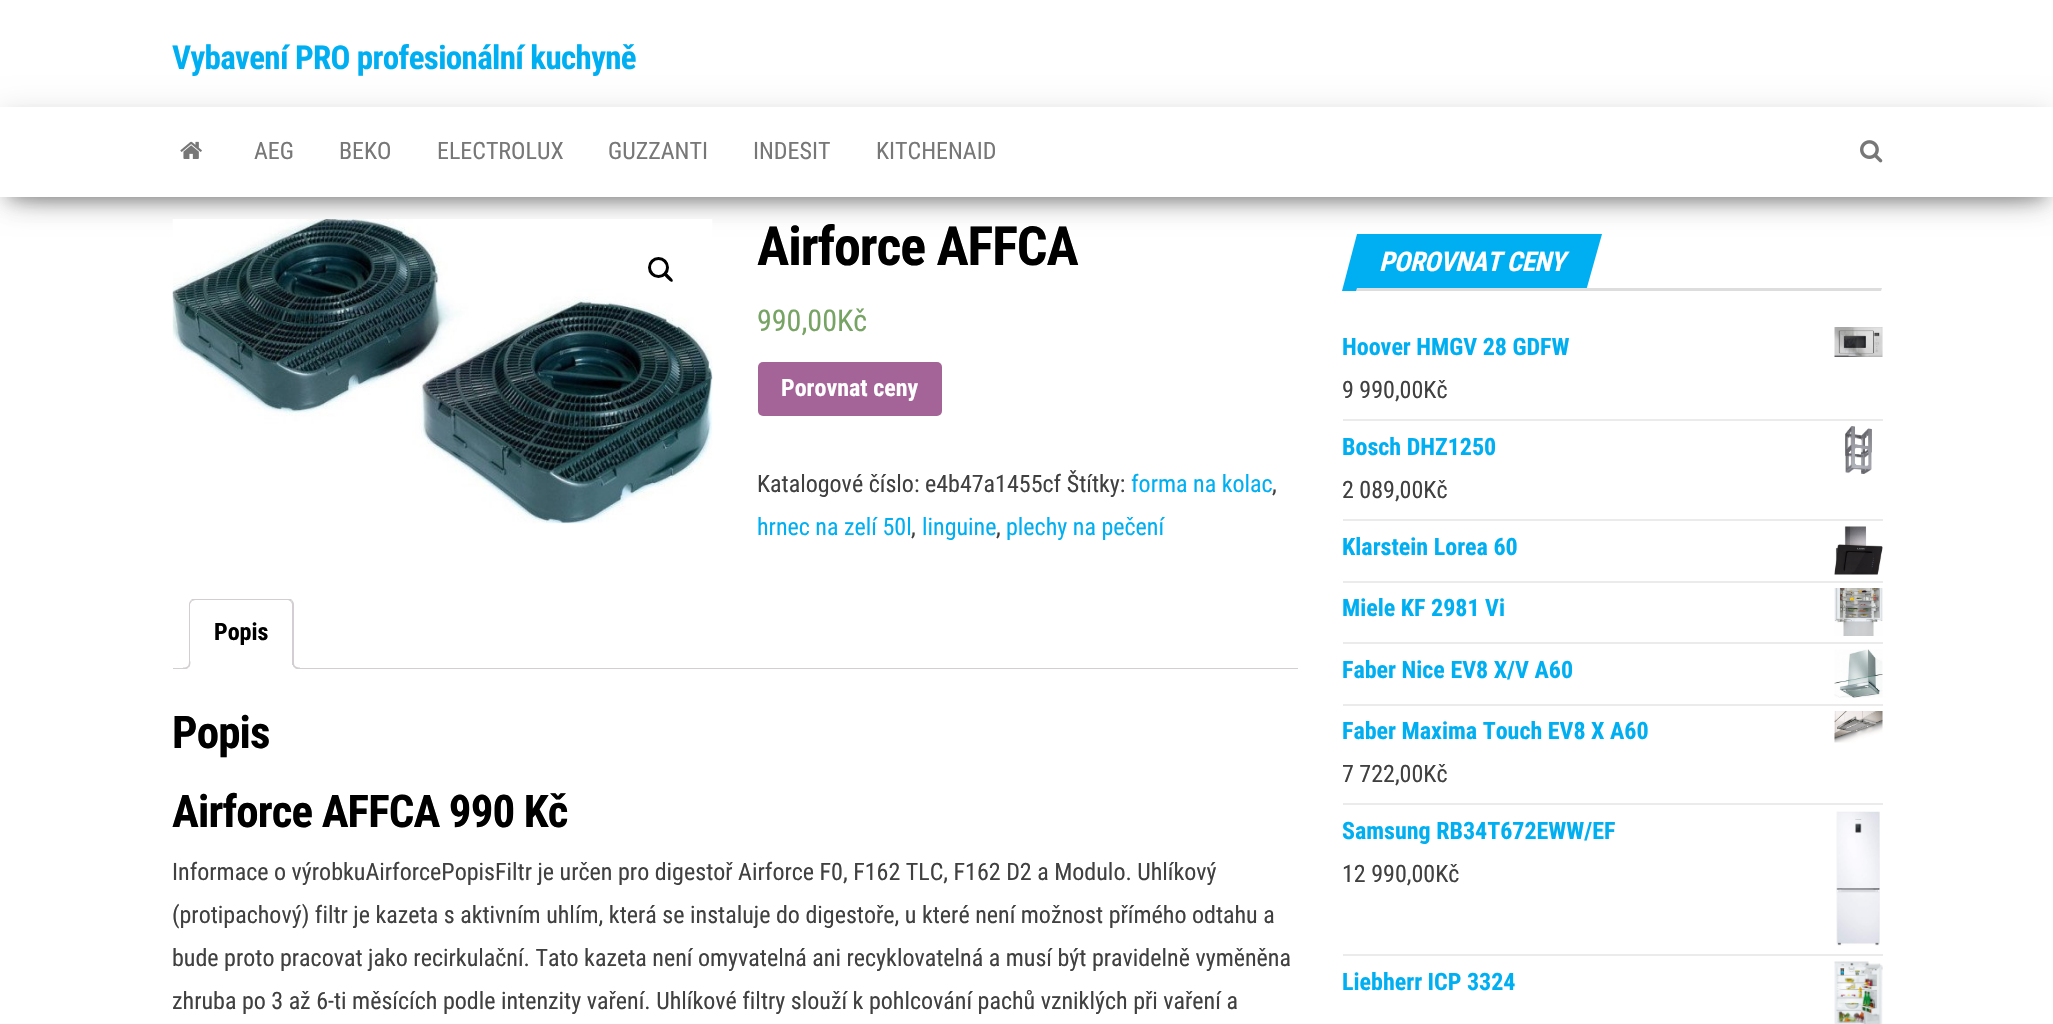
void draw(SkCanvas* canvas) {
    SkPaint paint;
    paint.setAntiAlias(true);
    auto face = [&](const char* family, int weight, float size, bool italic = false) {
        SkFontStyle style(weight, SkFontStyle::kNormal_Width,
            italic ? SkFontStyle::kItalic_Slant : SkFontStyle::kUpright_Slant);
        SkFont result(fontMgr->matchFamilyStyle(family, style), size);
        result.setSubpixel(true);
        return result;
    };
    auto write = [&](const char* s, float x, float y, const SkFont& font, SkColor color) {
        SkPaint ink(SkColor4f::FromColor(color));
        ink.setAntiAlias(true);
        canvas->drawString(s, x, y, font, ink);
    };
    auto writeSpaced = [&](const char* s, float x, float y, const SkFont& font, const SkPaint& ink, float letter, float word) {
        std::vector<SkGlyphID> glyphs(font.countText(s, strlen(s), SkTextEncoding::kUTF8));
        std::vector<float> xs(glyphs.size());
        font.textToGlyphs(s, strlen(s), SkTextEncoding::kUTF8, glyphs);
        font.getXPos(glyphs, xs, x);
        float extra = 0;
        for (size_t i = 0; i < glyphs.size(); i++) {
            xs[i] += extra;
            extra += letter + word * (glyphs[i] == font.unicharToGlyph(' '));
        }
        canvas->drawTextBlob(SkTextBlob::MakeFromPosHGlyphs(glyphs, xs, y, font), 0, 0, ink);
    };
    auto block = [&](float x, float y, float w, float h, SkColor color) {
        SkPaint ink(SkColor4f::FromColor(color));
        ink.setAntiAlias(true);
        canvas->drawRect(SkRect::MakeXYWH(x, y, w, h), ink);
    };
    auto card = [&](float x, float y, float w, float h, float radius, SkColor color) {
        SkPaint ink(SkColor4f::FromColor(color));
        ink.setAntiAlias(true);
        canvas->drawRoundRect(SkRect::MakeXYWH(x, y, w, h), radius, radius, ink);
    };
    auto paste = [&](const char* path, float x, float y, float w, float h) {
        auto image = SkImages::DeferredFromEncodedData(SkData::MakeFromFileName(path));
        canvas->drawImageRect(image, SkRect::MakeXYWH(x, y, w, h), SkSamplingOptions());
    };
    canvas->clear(SK_ColorWHITE);
    paint.setColor(SkColorSetARGB(31, 0, 0, 0));
    paint.setMaskFilter(SkMaskFilter::MakeBlur(kNormal_SkBlurStyle, 15));
    canvas->drawRect(SkRect::MakeXYWH(0, 111, 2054, 90), paint);
    paint.setMaskFilter(nullptr);
    auto kFont1 = face("Roboto Condensed", 700, 33);
    paint.setColor(SkColorSetRGB(0, 175, 242));
    writeSpaced("Vybavení PRO profesionální kuchyně", 172, 69, kFont1, paint, -0.65f, 0);
    paint.setColor(SkColorSetARGB(51, 0, 0, 0));
    paint.setMaskFilter(SkMaskFilter::MakeBlur(kNormal_SkBlurStyle, 7.5f));
    canvas->drawRect(SkRect::MakeXYWH(8, 126, 2038, 75), paint);
    paint.setMaskFilter(nullptr);
    paint.setColor(SkColorSetARGB(107, 0, 0, 0));
    paint.setMaskFilter(SkMaskFilter::MakeBlur(kNormal_SkBlurStyle, 15));
    canvas->drawRect(SkRect::MakeXYWH(18, 140, 2018, 54), paint);
    paint.setMaskFilter(nullptr);
    block(0, 107, 2053, 90, SK_ColorWHITE);
    paste("pic1.png", 180, 141, 22, 18);
    auto kFont2 = face("Roboto Condensed", 400, 24);
    write("AEG", 254, 159, kFont2, SkColorSetRGB(119, 119, 119));
    write("BEKO", 339, 159, kFont2, SkColorSetRGB(119, 119, 119));
    write("ELECTROLUX", 437, 159, kFont2, SkColorSetRGB(119, 119, 119));
    write("GUZZANTI", 608, 159, kFont2, SkColorSetRGB(119, 119, 119));
    write("INDESIT", 753, 159, kFont2, SkColorSetRGB(119, 119, 119));
    write("KITCHENAID", 876, 159, kFont2, SkColorSetRGB(119, 119, 119));
    paste("pic2.png", 1860, 140, 23, 23);
    paste("pic3.png", 172, 219, 541, 305);
    paint.setStyle(SkPaint::kStroke_Style);
    paint.setStrokeWidth(3);
    paint.setColor(SK_ColorBLACK);
    canvas->drawCircle(658.5f, 267.5f, 9, paint);
    paint.setStyle(SkPaint::kFill_Style);
    canvas->drawPath(SkPathBuilder().moveTo(664, 273).cubicTo(665.5f, 271, 668.5f, 275, 669.5f, 276).cubicTo(670, 277, 674, 279.5f, 672.5f, 281.5f).cubicTo(671, 283, 668, 279, 667, 278.5f).cubicTo(666.5f, 277.5f, 662.5f, 274.5f, 664, 273).close().detach(), paint);
    auto kFont3 = face("Roboto Condensed", 700, 54);
    writeSpaced("Airforce AFFCA", 757, 265, kFont3, paint, -1.1f, 0);
    auto kFont4 = face("Roboto Condensed", 400, 30);
    write("990,00Kč", 757, 331, kFont4, SkColorSetRGB(119, 164, 100));
    card(758, 362, 184, 54, 5, SkColorSetRGB(164, 100, 151));
    auto kFont5 = face("Roboto Condensed", 700, 24);
    write("Porovnat ceny", 781, 396, kFont5, SK_ColorWHITE);
    write("Katalogové číslo: e4b47a1455cf Štítky:", 757, 492, kFont2, SkColorSetRGB(64, 64, 64));
    write("forma na kolac", 1131, 492, kFont2, SkColorSetRGB(0, 175, 242));
    write(",", 1272, 492, kFont2, SkColorSetRGB(64, 64, 64));
    write("hrnec na zelí 50l", 757, 535, kFont2, SkColorSetRGB(0, 175, 242));
    write(",", 911, 535, kFont2, SkColorSetRGB(64, 64, 64));
    write("linguine", 922, 535, kFont2, SkColorSetRGB(0, 175, 242));
    write(",", 996, 535, kFont2, SkColorSetRGB(64, 64, 64));
    write("plechy na pečení", 1006, 535, kFont2, SkColorSetRGB(0, 175, 242));
    block(173, 668, 1125, 1, SkColorSetRGB(211, 206, 210));
    paint.setColor(SK_ColorWHITE);
    canvas->drawPath(SkPathBuilder().moveTo(195, 599).lineTo(288, 599).cubicTo(291.5f, 599, 294, 601.5f, 294, 605).lineTo(294, 669).lineTo(189, 669).lineTo(189, 605).cubicTo(189, 601.5f, 191.5f, 599, 195, 599).close().detach(), paint);
    canvas->save();
    canvas->clipRect(SkRect::MakeXYWH(173, 599, 1125, 70));
    paint.setColor(SkColorSetRGB(211, 206, 210));
    canvas->drawPath(SkPathBuilder().moveTo(195, 600).lineTo(192, 601).lineTo(191, 600).lineTo(193, 598).lineTo(290, 598).lineTo(292, 600).lineTo(291, 602).cubicTo(290, 601, 289, 600, 288, 600).close().detach(), paint);
    canvas->restore();
    canvas->drawPath(SkPathBuilder().moveTo(294, 669).lineTo(294, 604).cubicTo(294, 603, 293, 601, 292, 600).lineTo(291, 602).lineTo(292, 604).lineTo(292, 667).close().detach(), paint);
    paint.setColor(SK_ColorWHITE);
    canvas->drawPath(SkPathBuilder().moveTo(294, 669).lineTo(292, 667).lineTo(292, 668).lineTo(190, 668).lineTo(189, 669).close().detach(), paint);
    paint.setColor(SkColorSetRGB(211, 206, 210));
    canvas->drawPath(SkPathBuilder().moveTo(189, 669).lineTo(190, 668).lineTo(190, 604).lineTo(192, 601).lineTo(191, 600).cubicTo(190, 601, 189, 603, 189, 604).close().detach(), paint);
    write("Popis", 214, 640, kFont5, SK_ColorBLACK);
    canvas->save();
    canvas->clipRect(SkRect::MakeXYWH(173, 599, 1125, 70));
    paint.setColor(SK_ColorWHITE);
    canvas->drawPath(SkPathBuilder().moveTo(186, 669).lineTo(186, 672).cubicTo(191, 672, 194, 670.5f, 194, 665).lineTo(190, 665).cubicTo(189.5f, 667, 188, 668.5f, 186, 669).close().detach(), paint);
    canvas->restore();
    paint.setColor(SkColorSetRGB(211, 206, 210));
    canvas->drawPath(SkPathBuilder(SkPathFillType::kEvenOdd).moveTo(183, 661.5f).lineTo(190.5f, 661.5f).cubicTo(190.5f, 667, 188.5f, 669, 183, 669).close().moveTo(183, 661.5f).lineTo(189, 661.5f).cubicTo(189, 666, 187.5f, 667.5f, 183, 667.5f).close().detach(), paint);
    canvas->save();
    canvas->clipRect(SkRect::MakeXYWH(173, 599, 1125, 70));
    paint.setColor(SK_ColorWHITE);
    canvas->drawPath(SkPathBuilder().moveTo(290, 665).cubicTo(290, 669.5f, 292.5f, 672, 297, 672).lineTo(297, 669).cubicTo(295, 668.5f, 293.5f, 667, 293, 665).close().detach(), paint);
    canvas->restore();
    paint.setColor(SkColorSetRGB(211, 206, 210));
    canvas->drawPath(SkPathBuilder(SkPathFillType::kEvenOdd).moveTo(292.5f, 661.5f).lineTo(300, 661.5f).lineTo(300, 669).cubicTo(296, 669, 292.5f, 667.5f, 292.5f, 663).close().moveTo(294, 661.5f).lineTo(300, 661.5f).lineTo(300, 667.5f).cubicTo(297, 667.5f, 294, 666.5f, 294, 663).close().detach(), paint);
    auto kFont6 = face("Roboto Condensed", 700, 45);
    paint.setColor(SK_ColorBLACK);
    writeSpaced("Popis", 172, 748, kFont6, paint, -0.9f, 0);
    writeSpaced("Airforce AFFCA 990 Kč", 172, 827, kFont6, paint, -0.9f, 0);
    write("Informace o výrobkuAirforcePopisFiltr je určen pro digestoř Airforce F0, F162 TLC, F162 D2 a Modulo. Uhlíkový", 172, 880, kFont2, SkColorSetRGB(64, 64, 64));
    write("(protipachový) filtr je kazeta s aktivním uhlím, která se instaluje do digestoře, u které není možnost přímého odtahu a", 172, 923, kFont2, SkColorSetRGB(64, 64, 64));
    write("bude proto pracovat jako recirkulační. Tato kazeta není omyvatelná ani recyklovatelná a musí být pravidelně vyměněna", 172, 966, kFont2, SkColorSetRGB(64, 64, 64));
    write("zhruba po 3 až 6-ti měsících podle intenzity vaření. Uhlíkové filtry slouží k pohlcování pachů vzniklých při vaření a", 172, 1009, kFont2, SkColorSetRGB(64, 64, 64));
    paint.setColor(SkColorSetRGB(0, 175, 242));
    canvas->drawPath(SkPathBuilder().moveTo(1357, 234).lineTo(1602, 234).lineTo(1586, 291).lineTo(1342, 291).close().detach(), paint);
    auto kFont7 = face("Roboto Condensed", 700, 27, true);
    paint.setColor(SK_ColorWHITE);
    writeSpaced("POROVNAT CENY", 1379, 271, kFont7, paint, -0.5f, 0);
    paint.setColor(SkColorSetRGB(221, 221, 221));
    canvas->drawPath(SkPathBuilder().moveTo(1357, 288).lineTo(1882, 288).lineTo(1881, 291).lineTo(1356, 291).close().detach(), paint);
    block(1343, 419, 540, 2, SkColorSetRGB(235, 235, 235));
    write("Hoover HMGV 28 GDFW", 1342, 355, kFont5, SkColorSetRGB(0, 175, 242));
    paste("pic4.png", 1834, 327, 49, 30);
    write("9 990,00Kč", 1342, 398, kFont2, SkColorSetRGB(64, 64, 64));
    block(1343, 519, 540, 2, SkColorSetRGB(235, 235, 235));
    write("Bosch DHZ1250", 1342, 455, kFont5, SkColorSetRGB(0, 175, 242));
    paste("pic5.png", 1845, 426, 27, 48);
    write("2 089,00Kč", 1342, 498, kFont2, SkColorSetRGB(64, 64, 64));
    block(1343, 581, 540, 2, SkColorSetRGB(235, 235, 235));
    write("Klarstein Lorea 60", 1342, 555, kFont5, SkColorSetRGB(0, 175, 242));
    paste("pic6.png", 1834, 526, 49, 49);
    block(1343, 642, 540, 2, SkColorSetRGB(235, 235, 235));
    write("Miele KF 2981 Vi", 1342, 616, kFont5, SkColorSetRGB(0, 175, 242));
    paste("pic7.png", 1834, 588, 49, 48);
    block(1343, 704, 540, 2, SkColorSetRGB(235, 235, 235));
    write("Faber Nice EV8 X/V A60", 1342, 678, kFont5, SkColorSetRGB(0, 175, 242));
    paste("pic8.png", 1834, 649, 49, 49);
    block(1343, 803, 540, 2, SkColorSetRGB(235, 235, 235));
    write("Faber Maxima Touch EV8 X A60", 1342, 739, kFont5, SkColorSetRGB(0, 175, 242));
    paste("pic9.png", 1834, 711, 49, 32);
    write("7 722,00Kč", 1342, 782, kFont2, SkColorSetRGB(64, 64, 64));
    block(1343, 954, 540, 2, SkColorSetRGB(235, 235, 235));
    write("Samsung RB34T672EWW/EF", 1342, 839, kFont5, SkColorSetRGB(0, 175, 242));
    paste("pic10.png", 1836, 811, 44, 135);
    write("12 990,00Kč", 1342, 882, kFont2, SkColorSetRGB(64, 64, 64));
    write("Liebherr ICP 3324", 1342, 990, kFont5, SkColorSetRGB(0, 175, 242));
    paste("pic11.png", 1834, 961, 49, 63);
}
